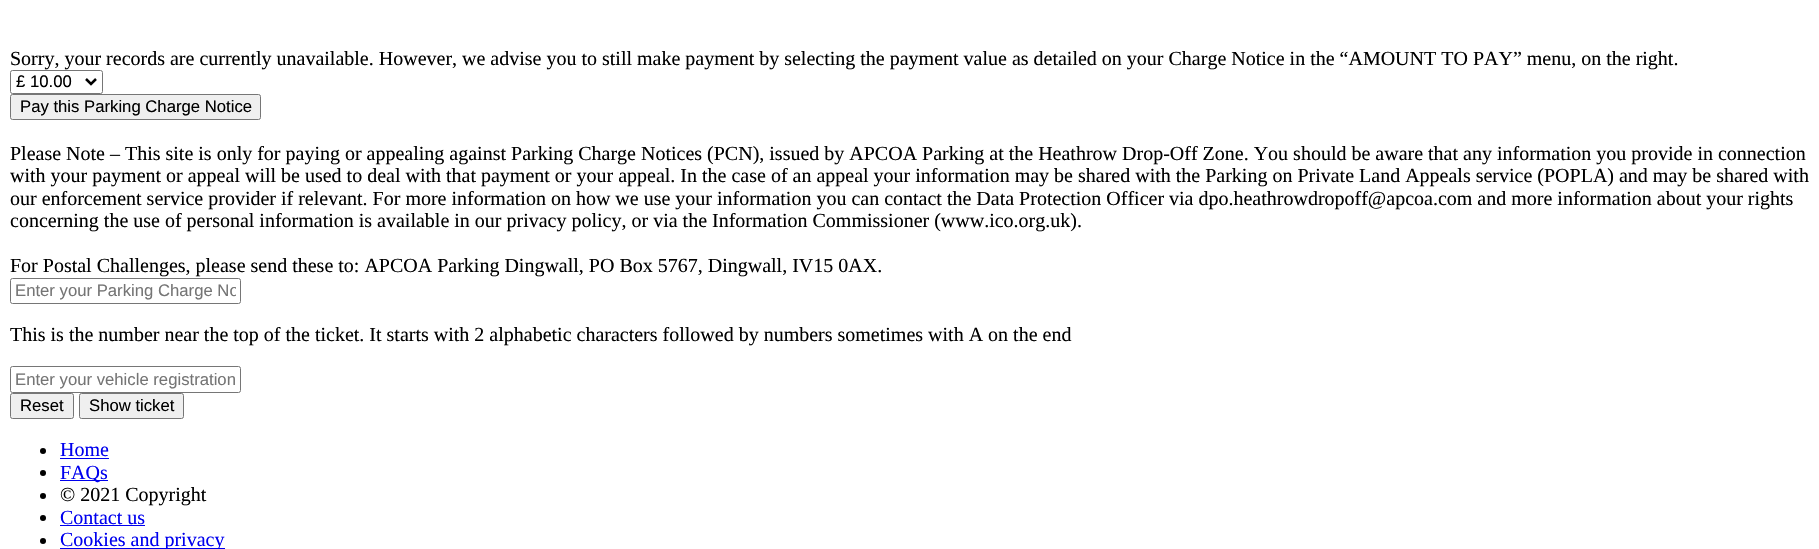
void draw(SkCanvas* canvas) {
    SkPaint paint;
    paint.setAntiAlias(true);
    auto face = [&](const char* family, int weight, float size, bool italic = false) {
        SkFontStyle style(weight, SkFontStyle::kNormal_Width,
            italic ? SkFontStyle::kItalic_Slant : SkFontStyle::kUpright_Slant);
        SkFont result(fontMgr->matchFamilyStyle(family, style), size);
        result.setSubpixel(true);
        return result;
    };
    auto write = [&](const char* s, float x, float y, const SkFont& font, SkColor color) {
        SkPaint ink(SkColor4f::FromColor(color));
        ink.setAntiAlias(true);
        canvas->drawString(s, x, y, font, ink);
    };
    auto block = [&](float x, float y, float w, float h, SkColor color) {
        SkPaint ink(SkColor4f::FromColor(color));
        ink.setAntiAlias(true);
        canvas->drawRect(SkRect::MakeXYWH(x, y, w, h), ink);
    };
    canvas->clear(SK_ColorWHITE);
    auto kFont1 = face("Liberation Serif", 400, 20);
    write("Sorry, your records are currently unavailable. However, we advise you to still make payment by selecting the payment value as detailed on your Charge Notice in the “AMOUNT TO PAY” menu, on the right.", 10, 65, kFont1, SK_ColorBLACK);
    paint.setStyle(SkPaint::kStroke_Style);
    paint.setStrokeWidth(1);
    paint.setColor(SkColorSetRGB(118, 118, 118));
    canvas->drawRoundRect(SkRect::MakeXYWH(10.5f, 70.5f, 92, 23), 2, 2, paint);
    paint.setStrokeWidth(2.5f);
    paint.setColor(SK_ColorBLACK);
    canvas->drawPath(SkPathBuilder().moveTo(86, 79).lineTo(91, 84).lineTo(96, 79).detach(), paint);
    auto kFont2 = face("Liberation Sans", 400, 16.7f);
    write("£ 10.00", 16, 87, kFont2, SK_ColorBLACK);
    paint.setStyle(SkPaint::kFill_Style);
    paint.setColor(SkColorSetRGB(239, 239, 239));
    canvas->drawRoundRect(SkRect::MakeXYWH(10.5f, 94.5f, 250, 25), 2, 2, paint);
    paint.setStyle(SkPaint::kStroke_Style);
    paint.setStrokeWidth(1);
    paint.setColor(SkColorSetRGB(118, 118, 118));
    canvas->drawRoundRect(SkRect::MakeXYWH(10.5f, 94.5f, 250, 25), 2, 2, paint);
    write("Pay this Parking Charge Notice", 20, 112, kFont2, SK_ColorBLACK);
    write("Please Note – This site is only for paying or appealing against Parking Charge Notices (PCN), issued by APCOA Parking at the Heathrow Drop-Off Zone. You should be aware that any information you provide in connection", 10, 160, kFont1, SK_ColorBLACK);
    write("with your payment or appeal will be used to deal with that payment or your appeal. In the case of an appeal your information may be shared with the Parking on Private Land Appeals service (POPLA) and may be shared with", 10, 182, kFont1, SK_ColorBLACK);
    write("our enforcement service provider if relevant. For more information on how we use your information you can contact the Data Protection Officer via dpo.heathrowdropoff@apcoa.com and more information about your rights", 10, 205, kFont1, SK_ColorBLACK);
    write("concerning the use of personal information is available in our privacy policy, or via the Information Commissioner (www.ico.org.uk).", 10, 227, kFont1, SK_ColorBLACK);
    write("For Postal Challenges, please send these to: APCOA Parking Dingwall, PO Box 5767, Dingwall, IV15 0AX.", 10, 272, kFont1, SK_ColorBLACK);
    canvas->drawRoundRect(SkRect::MakeXYWH(10.5f, 278.5f, 230, 25), 2, 2, paint);
    canvas->save();
    canvas->clipRect(SkRect::MakeXYWH(15, 281, 221, 19));
    write("Enter your Parking Charge No", 15, 296, kFont2, SkColorSetRGB(117, 117, 117));
    canvas->restore();
    write("This is the number near the top of the ticket. It starts with 2 alphabetic characters followed by numbers sometimes with A on the end", 10, 341, kFont1, SK_ColorBLACK);
    canvas->drawRoundRect(SkRect::MakeXYWH(10.5f, 366.5f, 230, 26), 2, 2, paint);
    write("Enter your vehicle registration", 15, 385, kFont2, SkColorSetRGB(117, 117, 117));
    paint.setStyle(SkPaint::kFill_Style);
    paint.setColor(SkColorSetRGB(239, 239, 239));
    canvas->drawRoundRect(SkRect::MakeXYWH(10.5f, 393.5f, 63, 25), 2, 2, paint);
    paint.setStyle(SkPaint::kStroke_Style);
    paint.setColor(SkColorSetRGB(118, 118, 118));
    canvas->drawRoundRect(SkRect::MakeXYWH(10.5f, 393.5f, 63, 25), 2, 2, paint);
    write("Reset", 20, 411, kFont2, SK_ColorBLACK);
    paint.setStyle(SkPaint::kFill_Style);
    paint.setColor(SkColorSetRGB(239, 239, 239));
    canvas->drawRoundRect(SkRect::MakeXYWH(79.5f, 393.5f, 104, 25), 2, 2, paint);
    paint.setStyle(SkPaint::kStroke_Style);
    paint.setColor(SkColorSetRGB(118, 118, 118));
    canvas->drawRoundRect(SkRect::MakeXYWH(79.5f, 393.5f, 104, 25), 2, 2, paint);
    write("Show ticket", 89, 411, kFont2, SK_ColorBLACK);
    paint.setStyle(SkPaint::kFill_Style);
    paint.setColor(SK_ColorBLACK);
    canvas->drawCircle(43, 451, 3, paint);
    write("Home", 60, 456, kFont1, SkColorSetRGB(0, 0, 238));
    block(60, 458, 49, 1, SkColorSetRGB(0, 0, 238));
    canvas->drawCircle(43, 473, 3, paint);
    block(60, 480, 48, 1, SkColorSetRGB(0, 0, 238));
    write("FAQs", 60, 479, kFont1, SkColorSetRGB(0, 0, 238));
    canvas->drawCircle(43, 496, 3, paint);
    write("© 2021 Copyright", 60, 501, kFont1, SK_ColorBLACK);
    canvas->drawCircle(43, 518, 3, paint);
    write("Contact us", 60, 524, kFont1, SkColorSetRGB(0, 0, 238));
    block(60, 525, 85, 1, SkColorSetRGB(0, 0, 238));
    canvas->drawCircle(43, 541, 3, paint);
    block(60, 548, 165, 1, SkColorSetRGB(0, 0, 238));
    write("Cookies and privacy", 60, 546, kFont1, SkColorSetRGB(0, 0, 238));
}
